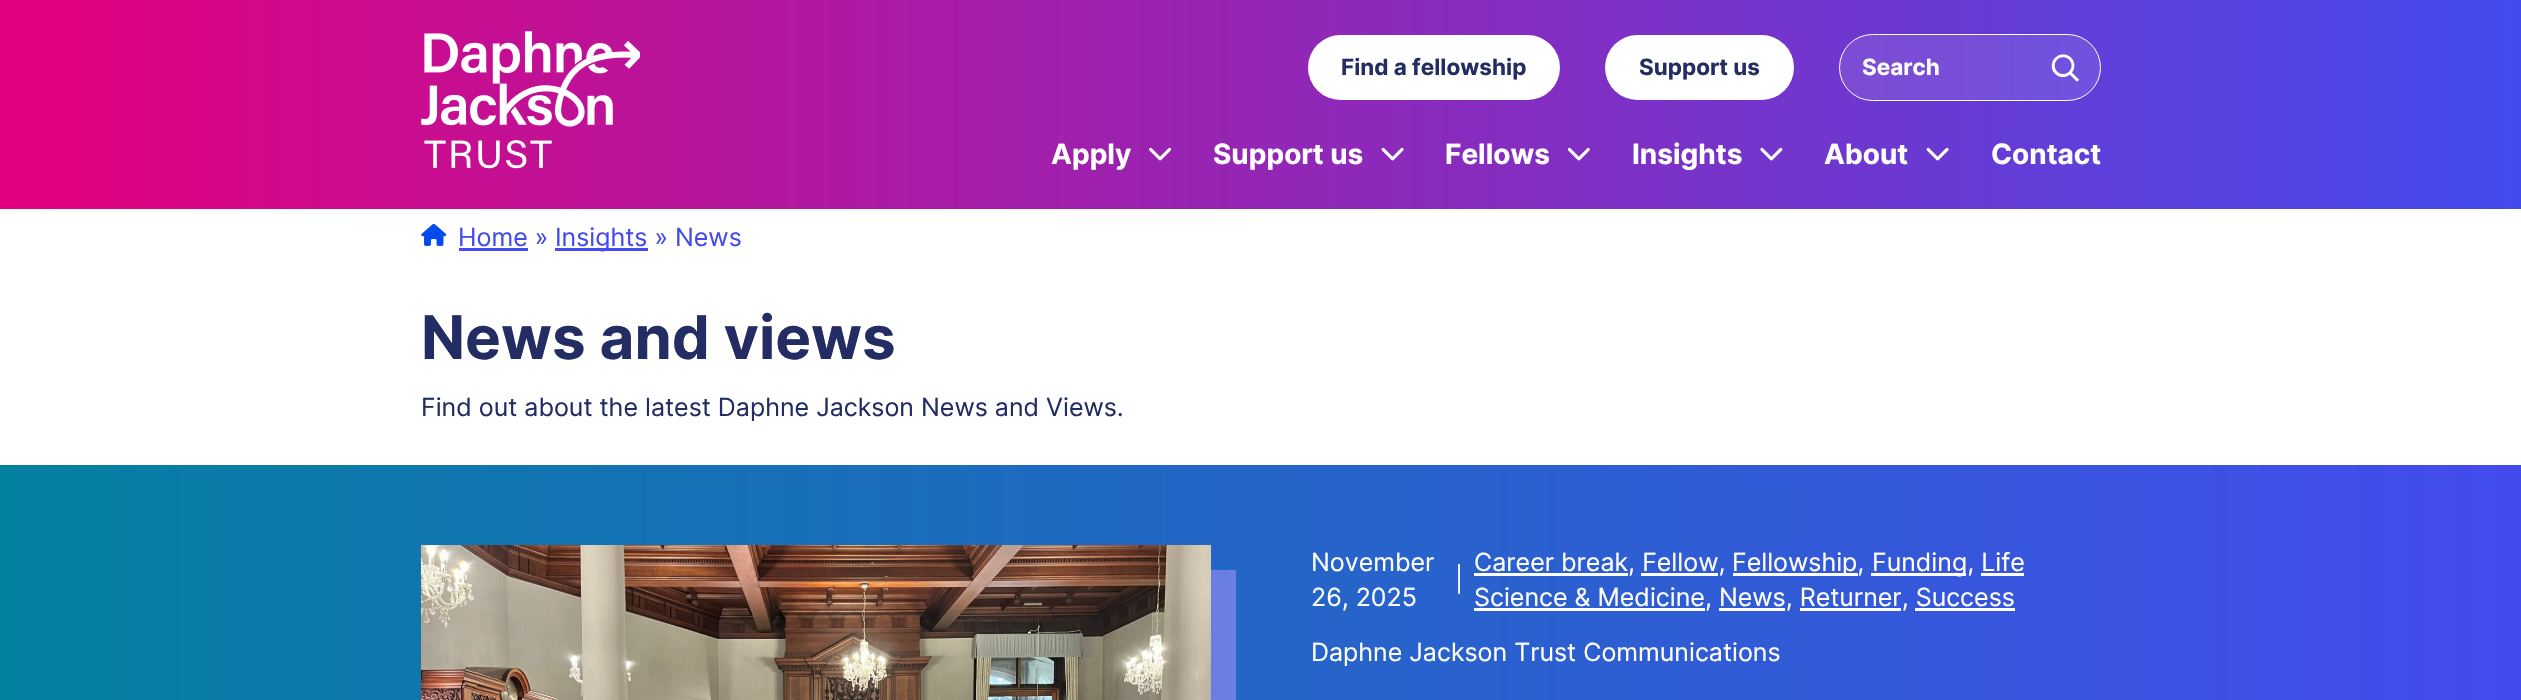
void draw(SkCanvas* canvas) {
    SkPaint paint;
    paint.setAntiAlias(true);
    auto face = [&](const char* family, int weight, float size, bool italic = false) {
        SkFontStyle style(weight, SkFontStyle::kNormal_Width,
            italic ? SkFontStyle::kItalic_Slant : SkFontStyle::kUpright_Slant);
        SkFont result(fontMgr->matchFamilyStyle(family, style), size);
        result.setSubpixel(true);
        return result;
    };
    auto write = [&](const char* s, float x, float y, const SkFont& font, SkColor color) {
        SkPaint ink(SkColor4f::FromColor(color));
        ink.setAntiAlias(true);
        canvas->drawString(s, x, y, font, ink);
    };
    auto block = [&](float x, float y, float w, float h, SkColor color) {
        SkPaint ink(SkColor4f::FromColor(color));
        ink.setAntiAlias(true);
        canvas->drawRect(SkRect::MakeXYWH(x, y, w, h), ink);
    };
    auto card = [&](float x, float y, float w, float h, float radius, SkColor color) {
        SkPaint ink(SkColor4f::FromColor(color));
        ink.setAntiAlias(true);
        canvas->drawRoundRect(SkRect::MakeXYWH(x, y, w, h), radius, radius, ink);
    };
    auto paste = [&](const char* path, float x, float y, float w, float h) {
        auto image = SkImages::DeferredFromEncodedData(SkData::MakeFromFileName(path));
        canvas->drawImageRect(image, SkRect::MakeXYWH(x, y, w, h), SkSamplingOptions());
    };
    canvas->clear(SK_ColorWHITE);
    {
        const SkColor colors[] = {SkColorSetRGB(228, 0, 125), SkColorSetRGB(68, 75, 237)};
        const float stops[] = {0, 1};
        const SkPoint ends[] = {{0, 104}, {2521, 104}};
        paint.setShader(SkGradientShader::MakeLinear(ends, colors, stops, 2, SkTileMode::kClamp));
        paint.setAlpha(255);
    }
    canvas->drawRect(SkRect::MakeXYWH(0, 0, 2521, 209), paint);
    paste("pic1.png", 421, 31, 219, 138);
    card(1308, 35, 252, 65, 32.5f, SK_ColorWHITE);
    auto kFont1 = face("Inter", 700, 22.5f);
    write("Find a fellowship", 1341, 75, kFont1, SkColorSetRGB(35, 45, 99));
    card(1605, 35, 189, 65, 32.5f, SK_ColorWHITE);
    write("Support us", 1639, 75, kFont1, SkColorSetRGB(35, 45, 99));
    paint.setShader(nullptr);
    paint.setColor(SkColorSetARGB(26, 255, 255, 255));
    canvas->drawRoundRect(SkRect::MakeXYWH(1839.5f, 34.5f, 261, 66), 33, 33, paint);
    paint.setStyle(SkPaint::kStroke_Style);
    paint.setStrokeWidth(1);
    paint.setColor(SK_ColorWHITE);
    canvas->drawRoundRect(SkRect::MakeXYWH(1839.5f, 34.5f, 261, 66), 33, 33, paint);
    write("Search", 1862, 75, kFont1, SK_ColorWHITE);
    paste("pic2.png", 2051, 54, 28, 28);
    auto kFont2 = face("Inter", 700, 28);
    write("Apply", 1051, 164, kFont2, SK_ColorWHITE);
    paste("pic3.png", 1149, 147, 23, 14);
    write("Support us", 1213, 164, kFont2, SK_ColorWHITE);
    paste("pic4.png", 1381, 147, 23, 14);
    write("Fellows", 1445, 164, kFont2, SK_ColorWHITE);
    paste("pic5.png", 1567, 147, 23, 14);
    write("Insights", 1632, 164, kFont2, SK_ColorWHITE);
    paste("pic6.png", 1760, 147, 23, 14);
    write("About", 1824, 164, kFont2, SK_ColorWHITE);
    paste("pic7.png", 1926, 147, 23, 14);
    write("Contact", 1991, 164, kFont2, SK_ColorWHITE);
    paste("pic8.png", 421, 224, 25, 22);
    auto kFont3 = face("Inter", 400, 25);
    write("Home »", 458, 246, kFont3, SkColorSetRGB(68, 75, 237));
    block(459, 248, 69, 3, SkColorSetRGB(68, 75, 237));
    block(555, 248, 93, 3, SkColorSetRGB(68, 75, 237));
    write("Insights » News", 555, 246, kFont3, SkColorSetRGB(68, 75, 237));
    auto kFont4 = face("Inter", 700, 60);
    write("News and views", 421, 359, kFont4, SkColorSetRGB(35, 45, 99));
    write("Find out about the latest Daphne Jackson News and Views.", 421, 416, kFont3, SkColorSetRGB(35, 45, 99));
    paint.setStyle(SkPaint::kFill_Style);
    {
        const SkColor colors[] = {SkColorSetRGB(4, 128, 161), SkColorSetRGB(68, 75, 237)};
        const float stops[] = {0, 1};
        const SkPoint ends[] = {{0, 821}, {2521, 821}};
        paint.setShader(SkGradientShader::MakeLinear(ends, colors, stops, 2, SkTileMode::kClamp));
        paint.setAlpha(255);
    }
    canvas->drawRect(SkRect::MakeXYWH(0, 465, 2521, 235), paint);
    paste("pic9.png", 421, 545, 790, 155);
    {
        const SkColor colors[] = {SkColorSetRGB(68, 75, 237), SkColorSetRGB(107, 127, 228)};
        const float stops[] = {0, 1};
        const SkPoint ends[] = {{446, 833}, {1236, 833}};
        paint.setShader(SkGradientShader::MakeLinear(ends, colors, stops, 2, SkTileMode::kClamp));
        paint.setAlpha(255);
    }
    canvas->drawRect(SkRect::MakeXYWH(1211, 570, 25, 130), paint);
    write("November", 1311, 571, kFont3, SK_ColorWHITE);
    write("26, 2025", 1311, 606, kFont3, SK_ColorWHITE);
    write("|", 1455, 588, kFont3, SK_ColorWHITE);
    block(1474, 573, 154, 3, SK_ColorWHITE);
    write("Career break, Fellow,", 1474, 571, kFont3, SK_ColorWHITE);
    block(1733, 573, 125, 3, SK_ColorWHITE);
    write("Fellowship,", 1732, 571, kFont3, SK_ColorWHITE);
    block(1871, 573, 95, 3, SK_ColorWHITE);
    write("Funding, Life", 1872, 571, kFont3, SK_ColorWHITE);
    block(1641, 573, 77, 3, SK_ColorWHITE);
    block(1474, 608, 231, 3, SK_ColorWHITE);
    write("Science & Medicine, News, Returner, Success", 1474, 606, kFont3, SK_ColorWHITE);
    block(1981, 573, 43, 3, SK_ColorWHITE);
    block(1719, 608, 66, 3, SK_ColorWHITE);
    block(1800, 608, 101, 3, SK_ColorWHITE);
    block(1915, 608, 100, 3, SK_ColorWHITE);
    write("Daphne Jackson Trust Communications", 1311, 661, kFont3, SK_ColorWHITE);
}
